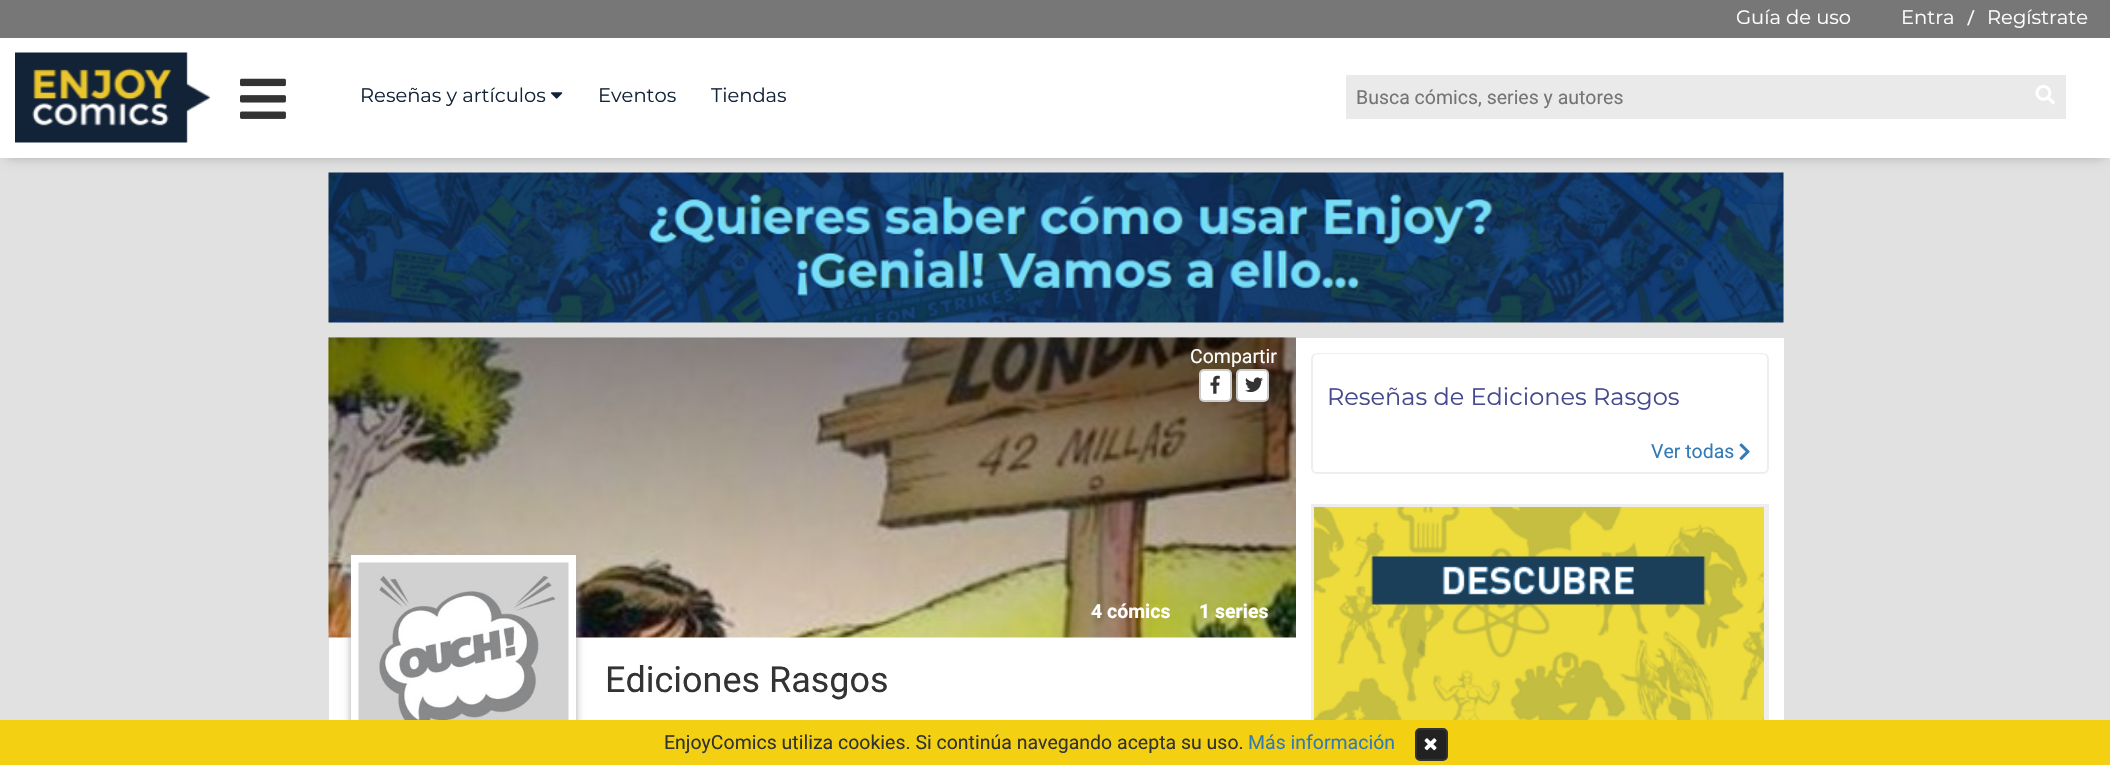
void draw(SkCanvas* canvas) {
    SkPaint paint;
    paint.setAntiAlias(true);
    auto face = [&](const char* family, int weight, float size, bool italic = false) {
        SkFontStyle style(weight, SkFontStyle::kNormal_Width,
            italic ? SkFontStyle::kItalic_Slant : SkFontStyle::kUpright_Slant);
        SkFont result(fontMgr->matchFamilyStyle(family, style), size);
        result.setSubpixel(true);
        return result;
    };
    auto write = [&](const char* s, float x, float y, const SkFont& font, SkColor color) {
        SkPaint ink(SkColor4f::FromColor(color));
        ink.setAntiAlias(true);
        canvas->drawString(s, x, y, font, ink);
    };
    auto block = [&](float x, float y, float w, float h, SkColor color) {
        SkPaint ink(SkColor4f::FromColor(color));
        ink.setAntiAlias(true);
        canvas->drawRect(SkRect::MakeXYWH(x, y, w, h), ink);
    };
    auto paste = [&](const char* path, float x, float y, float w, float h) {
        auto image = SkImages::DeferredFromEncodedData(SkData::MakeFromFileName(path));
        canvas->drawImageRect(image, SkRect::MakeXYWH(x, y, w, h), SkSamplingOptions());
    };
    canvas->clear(SkColorSetRGB(226, 225, 225));
    paste("pic5.png", 328, 172, 1456, 151);
    paint.setColor(SkColorSetARGB(77, 0, 0, 0));
    paint.setMaskFilter(SkMaskFilter::MakeBlur(kNormal_SkBlurStyle, 6));
    canvas->drawRect(SkRect::MakeXYWH(6, 11, 2099, 145), paint);
    paint.setMaskFilter(nullptr);
    block(0, 38, 2110, 120, SK_ColorWHITE);
    block(0, 0, 2110, 38, SkColorSetRGB(119, 119, 119));
    auto kFont1 = face("Montserrat", 400, 19.5f);
    write("Guía de uso", 1736, 24, kFont1, SK_ColorWHITE);
    write("Entra", 1901, 24, kFont1, SK_ColorWHITE);
    auto kFont2 = face("Roboto", 400, 19.5f);
    write("/", 1967, 24, kFont2, SK_ColorWHITE);
    write("Regístrate", 1987, 24, kFont1, SK_ColorWHITE);
    paste("pic1.png", 15, 52, 195, 91);
    paste("pic2.png", 240, 78, 46, 41);
    write("Reseñas y artículos", 360, 102, kFont1, SkColorSetRGB(18, 35, 56));
    paste("pic3.png", 551, 92, 12, 7);
    write("Eventos", 598, 102, kFont1, SkColorSetRGB(18, 35, 56));
    write("Tiendas", 711, 102, kFont1, SkColorSetRGB(18, 35, 56));
    block(1346, 75, 720, 44, SkColorSetRGB(234, 234, 234));
    write("Busca cómics, series y autores", 1356, 104, kFont2, SkColorSetRGB(117, 117, 117));
    paste("pic4.png", 2035, 85, 20, 20);
    block(329, 338, 1455, 382, SK_ColorWHITE);
    paste("pic6.png", 328, 337, 968, 301);
    write("Compartir", 1190, 363, kFont2, SK_ColorWHITE);
    paint.setColor(SK_ColorWHITE);
    canvas->drawRoundRect(SkRect::MakeXYWH(1200, 370, 31, 31), 4, 4, paint);
    paint.setStyle(SkPaint::kStroke_Style);
    paint.setStrokeWidth(2);
    paint.setColor(SkColorSetRGB(204, 204, 204));
    canvas->drawRoundRect(SkRect::MakeXYWH(1200, 370, 31, 31), 4, 4, paint);
    paste("pic7.png", 1210, 375, 10, 19);
    paint.setStyle(SkPaint::kFill_Style);
    paint.setColor(SK_ColorWHITE);
    canvas->drawRoundRect(SkRect::MakeXYWH(1237, 370, 31, 31), 4, 4, paint);
    paint.setStyle(SkPaint::kStroke_Style);
    paint.setColor(SkColorSetRGB(204, 204, 204));
    canvas->drawRoundRect(SkRect::MakeXYWH(1237, 370, 31, 31), 4, 4, paint);
    paste("pic8.png", 1245, 377, 18, 16);
    paint.setStyle(SkPaint::kFill_Style);
    paint.setColor(SkColorSetRGB(170, 170, 170));
    paint.setMaskFilter(SkMaskFilter::MakeBlur(kNormal_SkBlurStyle, 4));
    canvas->drawRect(SkRect::MakeXYWH(351, 558, 225, 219), paint);
    paint.setMaskFilter(nullptr);
    block(351, 555, 225, 165, SK_ColorWHITE);
    paste("pic9.png", 358, 562, 211, 158);
    auto kFont3 = face("Roboto", 700, 19.5f);
    write("4 cómics", 1091, 618, kFont3, SK_ColorWHITE);
    write("1 series", 1199, 618, kFont3, SK_ColorWHITE);
    auto kFont4 = face("Roboto", 400, 36);
    write("Ediciones Rasgos", 605, 692, kFont4, SkColorSetRGB(51, 51, 51));
    paint.setStyle(SkPaint::kStroke_Style);
    paint.setColor(SkColorSetRGB(238, 238, 238));
    canvas->drawRoundRect(SkRect::MakeXYWH(1312, 354, 456, 119), 5, 5, paint);
    paint.setStyle(SkPaint::kFill_Style);
    paint.setColor(SK_ColorWHITE);
    canvas->drawPath(SkPathBuilder().moveTo(1318, 354).lineTo(1762, 354).cubicTo(1765, 354, 1767, 356, 1767, 359).lineTo(1767, 419).lineTo(1313, 419).lineTo(1313, 359).cubicTo(1313, 356, 1315, 354, 1318, 354).close().detach(), paint);
    auto kFont5 = face("Montserrat", 400, 24);
    write("Reseñas de Ediciones Rasgos", 1327, 405, kFont5, SkColorSetRGB(69, 73, 141));
    write("Ver todas", 1651, 458, kFont2, SkColorSetRGB(51, 122, 183));
    paste("pic10.png", 1739, 443, 11, 17);
    block(1311, 504, 458, 216, SkColorSetRGB(238, 238, 238));
    paste("pic11.png", 1314, 507, 450, 213);
    block(0, 720, 2110, 45, SkColorSetRGB(243, 208, 18));
    write("EnjoyComics utiliza cookies. Si continúa navegando acepta su uso.", 664, 749, kFont2, SkColorSetRGB(51, 51, 51));
    write("Más información", 1248, 749, kFont2, SkColorSetRGB(51, 122, 183));
    paint.setColor(SkColorSetRGB(34, 34, 34));
    canvas->drawRoundRect(SkRect::MakeXYWH(1416, 729, 31, 31), 4, 4, paint);
    paint.setStyle(SkPaint::kStroke_Style);
    paint.setColor(SkColorSetRGB(51, 51, 51));
    canvas->drawRoundRect(SkRect::MakeXYWH(1416, 729, 31, 31), 4, 4, paint);
    paste("pic12.png", 1424, 738, 13, 13);
}
